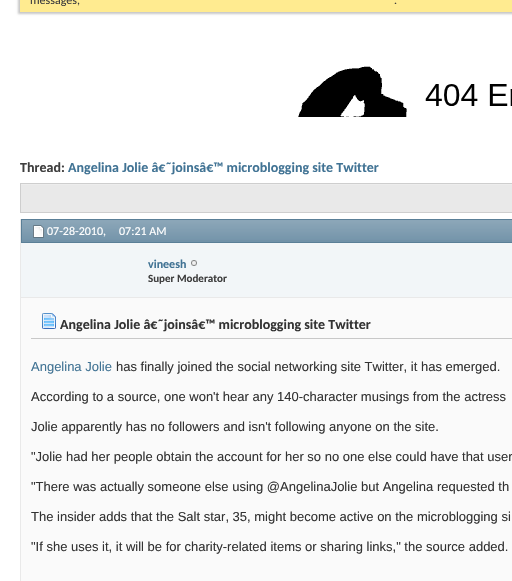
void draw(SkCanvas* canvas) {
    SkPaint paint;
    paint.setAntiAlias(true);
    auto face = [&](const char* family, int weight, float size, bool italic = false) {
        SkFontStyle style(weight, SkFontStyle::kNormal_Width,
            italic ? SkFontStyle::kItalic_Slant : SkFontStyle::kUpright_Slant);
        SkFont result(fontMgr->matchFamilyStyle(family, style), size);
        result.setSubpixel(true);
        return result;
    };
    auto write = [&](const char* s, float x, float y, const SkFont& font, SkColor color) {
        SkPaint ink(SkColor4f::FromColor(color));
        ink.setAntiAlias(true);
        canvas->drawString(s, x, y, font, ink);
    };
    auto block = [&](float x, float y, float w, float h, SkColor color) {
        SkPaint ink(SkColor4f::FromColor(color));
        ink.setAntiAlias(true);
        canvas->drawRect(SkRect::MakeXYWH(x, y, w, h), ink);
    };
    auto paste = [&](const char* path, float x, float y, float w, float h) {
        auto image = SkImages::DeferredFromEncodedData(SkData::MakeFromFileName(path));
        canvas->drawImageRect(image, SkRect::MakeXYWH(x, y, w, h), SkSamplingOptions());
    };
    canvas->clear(SK_ColorWHITE);
    paint.setColor(SkColorSetRGB(200, 200, 200));
    paint.setMaskFilter(SkMaskFilter::MakeBlur(kNormal_SkBlurStyle, 1));
    canvas->drawRect(SkRect::MakeXYWH(18, -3, 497, 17), paint);
    paint.setMaskFilter(nullptr);
    block(20, 0, 492, 12, SkColorSetRGB(255, 235, 144));
    auto kFont1 = face("Carlito", 400, 12);
    write("messages,", 30, 4, kFont1, SkColorSetRGB(62, 62, 62));
    write(".", 394, 4, kFont1, SkColorSetRGB(62, 62, 62));
    paste("pic1.png", 298, 66, 214, 51);
    auto kFont2 = face("Carlito", 700, 14);
    write("Thread:", 20, 172, kFont2, SkColorSetRGB(62, 62, 62));
    write("Angelina Jolie â€˜joinsâ€™ microblogging site Twitter", 68, 172, kFont2, SkColorSetRGB(65, 115, 148));
    block(21, 185, 491, 27, SkColorSetRGB(233, 233, 233));
    block(20, 184, 492, 1, SkColorSetRGB(237, 237, 237));
    paint.setStyle(SkPaint::kStroke_Style);
    paint.setStrokeWidth(1);
    paint.setColor(SkColorSetRGB(206, 206, 206));
    canvas->drawRect(SkRect::MakeXYWH(20.5f, 183.5f, 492, 29), paint);
    paint.setColor(SkColorSetRGB(233, 233, 233));
    canvas->drawRect(SkRect::MakeXYWH(20.5f, 219.5f, 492, 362), paint);
    block(22, 220, 490, 22, SkColorSetRGB(113, 146, 168));
    paste("pic2.png", 22, 220, 490, 20);
    paint.setColor(SkColorSetRGB(90, 127, 151));
    canvas->drawRect(SkRect::MakeXYWH(21.5f, 219.5f, 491, 23), paint);
    paste("pic3.png", 33, 225, 11, 13);
    write("07-28-2010,", 47, 235, kFont1, SK_ColorWHITE);
    write("07:21 AM", 119, 235, kFont1, SK_ColorWHITE);
    block(21, 243, 491, 54, SkColorSetRGB(242, 246, 248));
    block(21, 297, 491, 1, SkColorSetRGB(233, 233, 233));
    auto kFont3 = face("Carlito", 700, 12);
    write("vineesh", 148, 268, kFont3, SkColorSetRGB(65, 115, 148));
    paste("pic4.png", 191, 260, 6, 6);
    auto kFont4 = face("Carlito", 700, 11);
    write("Super Moderator", 148, 282, kFont4, SkColorSetRGB(62, 62, 62));
    block(21, 298, 491, 283, SkColorSetRGB(250, 250, 250));
    block(31, 338, 481, 1, SkColorSetRGB(200, 200, 200));
    paste("pic5.png", 42, 313, 14, 16);
    write("Angelina Jolie â€˜joinsâ€™ microblogging site Twitter", 60, 329, kFont2, SkColorSetRGB(51, 51, 51));
    auto kFont5 = face("Liberation Sans", 400, 13);
    write("Angelina Jolie", 31, 371, kFont5, SkColorSetRGB(65, 115, 148));
    write("has finally joined the social networking site Twitter, it has emerged.", 116, 371, kFont5, SkColorSetRGB(51, 51, 51));
    write("According to a source, one won't hear any 140-character musings from the actress", 31, 401, kFont5, SkColorSetRGB(51, 51, 51));
    write("Jolie apparently has no followers and isn't following anyone on the site.", 31, 431, kFont5, SkColorSetRGB(51, 51, 51));
    write("\"Jolie had her people obtain the account for her so no one else could have that user", 31, 461, kFont5, SkColorSetRGB(51, 51, 51));
    write("\"There was actually someone else using @AngelinaJolie but Angelina requested th", 31, 491, kFont5, SkColorSetRGB(51, 51, 51));
    write("The insider adds that the Salt star, 35, might become active on the microblogging si", 31, 521, kFont5, SkColorSetRGB(51, 51, 51));
    write("\"If she uses it, it will be for charity-related items or sharing links,\" the source added.", 31, 551, kFont5, SkColorSetRGB(51, 51, 51));
}
